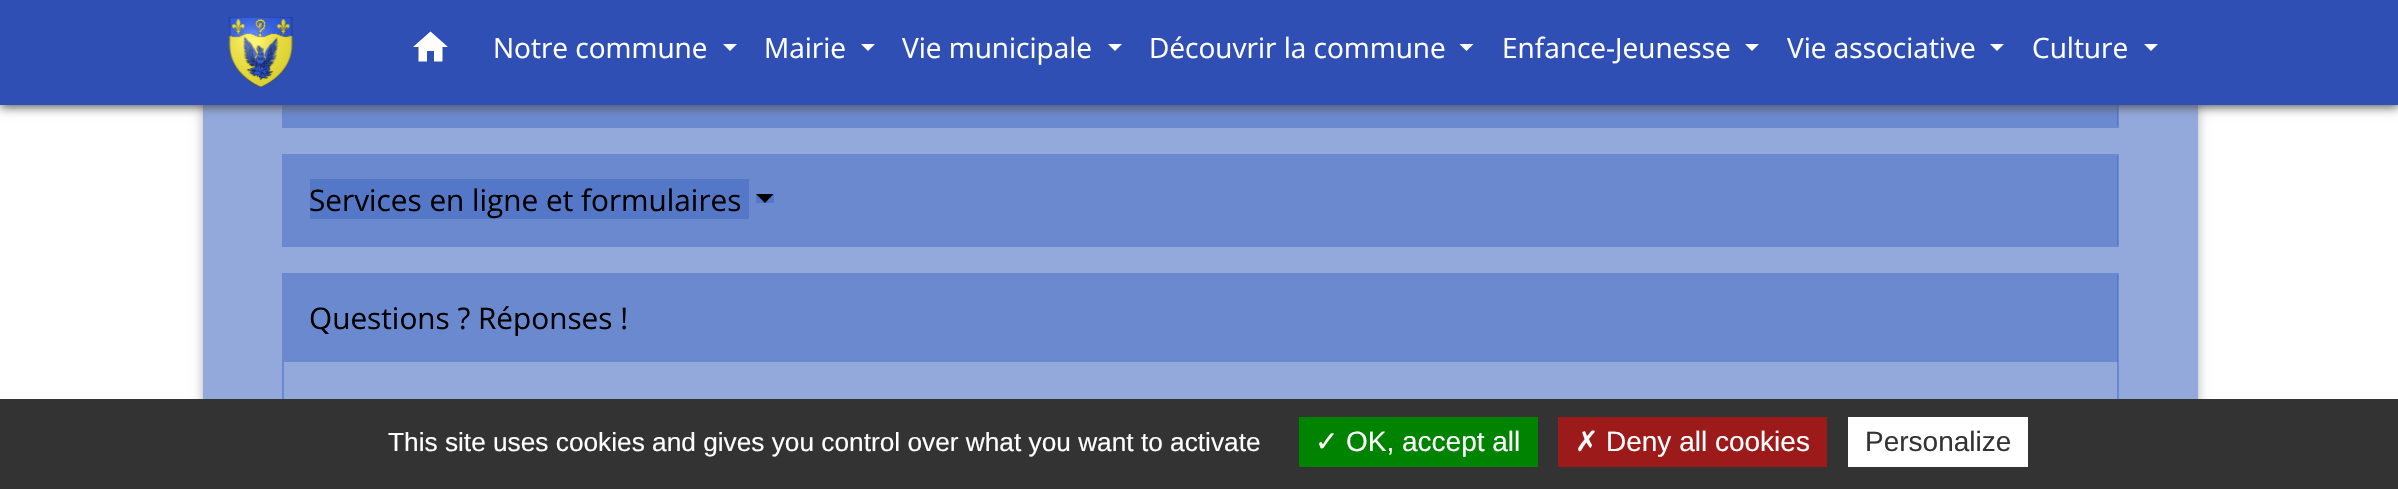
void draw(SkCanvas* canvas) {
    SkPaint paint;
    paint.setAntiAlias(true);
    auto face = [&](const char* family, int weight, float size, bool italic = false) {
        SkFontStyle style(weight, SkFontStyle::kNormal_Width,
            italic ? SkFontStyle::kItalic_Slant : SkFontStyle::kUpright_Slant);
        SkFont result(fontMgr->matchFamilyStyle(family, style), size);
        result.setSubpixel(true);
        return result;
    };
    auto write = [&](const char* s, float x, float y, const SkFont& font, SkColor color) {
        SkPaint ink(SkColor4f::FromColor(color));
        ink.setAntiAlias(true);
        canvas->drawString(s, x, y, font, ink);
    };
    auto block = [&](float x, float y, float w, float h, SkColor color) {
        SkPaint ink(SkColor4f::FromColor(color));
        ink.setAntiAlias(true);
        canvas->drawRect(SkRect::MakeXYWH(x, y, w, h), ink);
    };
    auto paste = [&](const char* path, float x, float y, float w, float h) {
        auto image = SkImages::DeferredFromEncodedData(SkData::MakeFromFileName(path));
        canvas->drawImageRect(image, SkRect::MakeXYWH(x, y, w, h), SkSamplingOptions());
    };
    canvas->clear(SK_ColorWHITE);
    paint.setColor(SkColorSetARGB(77, 0, 0, 0));
    paint.setMaskFilter(SkMaskFilter::MakeBlur(kNormal_SkBlurStyle, 5));
    canvas->drawRect(SkRect::MakeXYWH(203, -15, 1995, 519), paint);
    paint.setMaskFilter(nullptr);
    block(203, 105, 1995, 294, SkColorSetRGB(147, 169, 220));
    paint.setStyle(SkPaint::kStroke_Style);
    paint.setStrokeWidth(2);
    paint.setColor(SkColorSetRGB(107, 137, 207));
    canvas->drawRect(SkRect::MakeXYWH(283, 38, 1835, 89), paint);
    block(284, 105, 1834, 21, SkColorSetARGB(115, 58, 97, 190));
    paint.setStyle(SkPaint::kFill_Style);
    paint.setColor(SkColorSetRGB(83, 83, 83));
    paint.setMaskFilter(SkMaskFilter::MakeBlur(kNormal_SkBlurStyle, 5));
    canvas->drawRect(SkRect::MakeXYWH(0, 2, 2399, 105), paint);
    paint.setMaskFilter(nullptr);
    block(0, 0, 2398, 105, SkColorSetRGB(47, 79, 180));
    paste("pic1.png", 228, 17, 65, 70);
    paint.setColor(SK_ColorWHITE);
    canvas->drawPath(SkPathBuilder().moveTo(427, 61.5f).lineTo(418.5f, 61.5f).lineTo(418.5f, 47).lineTo(413, 47).lineTo(430.5f, 31.5f).lineTo(448, 47).lineTo(442.5f, 47).lineTo(442.5f, 61.5f).lineTo(434, 61.5f).lineTo(434, 51).lineTo(427, 51).close().detach(), paint);
    auto kFont1 = face("Open Sans", 400, 28);
    write("Notre commune", 493, 58, kFont1, SK_ColorWHITE);
    canvas->drawPath(SkPathBuilder().moveTo(723, 44).lineTo(737, 44).lineTo(730, 51).close().detach(), paint);
    write("Mairie", 764, 58, kFont1, SK_ColorWHITE);
    canvas->drawPath(SkPathBuilder().moveTo(861, 44).lineTo(875, 44).lineTo(868, 51).close().detach(), paint);
    write("Vie municipale", 902, 58, kFont1, SK_ColorWHITE);
    canvas->drawPath(SkPathBuilder().moveTo(1108, 44).lineTo(1122, 44).lineTo(1115, 51).close().detach(), paint);
    write("Découvrir la commune", 1149, 58, kFont1, SK_ColorWHITE);
    canvas->drawPath(SkPathBuilder().moveTo(1459.5f, 44).lineTo(1473.5f, 44).lineTo(1466.5f, 51).close().detach(), paint);
    write("Enfance-Jeunesse", 1502, 58, kFont1, SK_ColorWHITE);
    canvas->drawPath(SkPathBuilder().moveTo(1745, 44).lineTo(1759, 44).lineTo(1752, 51).close().detach(), paint);
    write("Vie associative", 1787, 58, kFont1, SK_ColorWHITE);
    canvas->drawPath(SkPathBuilder().moveTo(1990, 44).lineTo(2004, 44).lineTo(1997, 51).close().detach(), paint);
    write("Culture", 2032, 58, kFont1, SK_ColorWHITE);
    canvas->drawPath(SkPathBuilder().moveTo(2144, 44).lineTo(2158, 44).lineTo(2151, 51).close().detach(), paint);
    paint.setStyle(SkPaint::kStroke_Style);
    paint.setColor(SkColorSetRGB(107, 137, 207));
    canvas->drawRect(SkRect::MakeXYWH(283, 155, 1835, 91), paint);
    block(284, 156, 1834, 89, SkColorSetARGB(115, 58, 97, 190));
    block(310, 179, 439, 40, SkColorSetRGB(85, 119, 199));
    block(756, 194, 18, 9, SkColorSetRGB(85, 119, 199));
    auto kFont2 = face("Open Sans", 400, 29.75f);
    write("Services en ligne et formulaires", 309, 211, kFont2, SK_ColorBLACK);
    paint.setStyle(SkPaint::kFill_Style);
    paint.setColor(SK_ColorBLACK);
    canvas->drawPath(SkPathBuilder().moveTo(756, 194).lineTo(773.5f, 194).lineTo(765, 203).close().detach(), paint);
    paint.setStyle(SkPaint::kStroke_Style);
    paint.setColor(SkColorSetRGB(107, 137, 207));
    canvas->drawRect(SkRect::MakeXYWH(283, 274, 1835, 194), paint);
    block(284, 275, 1834, 87, SkColorSetARGB(115, 58, 97, 190));
    write("Questions ? Réponses !", 309, 329, kFont2, SK_ColorBLACK);
    block(0, 399, 2398, 90, SkColorSetRGB(51, 51, 51));
    auto kFont3 = face("Liberation Sans", 400, 26.25f);
    write("This site uses cookies and gives you control over what you want to activate", 388, 451, kFont3, SK_ColorWHITE);
    block(1299, 417, 239, 50, SkColorSetRGB(0, 131, 0));
    auto kFont4 = face("DejaVu Sans", 400, 28);
    write("✓", 1315, 451, kFont4, SK_ColorWHITE);
    auto kFont5 = face("Liberation Sans", 400, 28);
    write("OK, accept all", 1346, 451, kFont5, SK_ColorWHITE);
    block(1558, 417, 269, 50, SkColorSetRGB(156, 26, 26));
    write("✗", 1575, 451, kFont4, SK_ColorWHITE);
    write("Deny all cookies", 1606, 451, kFont5, SK_ColorWHITE);
    block(1848, 417, 180, 50, SK_ColorWHITE);
    write("Personalize", 1865, 451, kFont5, SkColorSetRGB(51, 51, 51));
}
